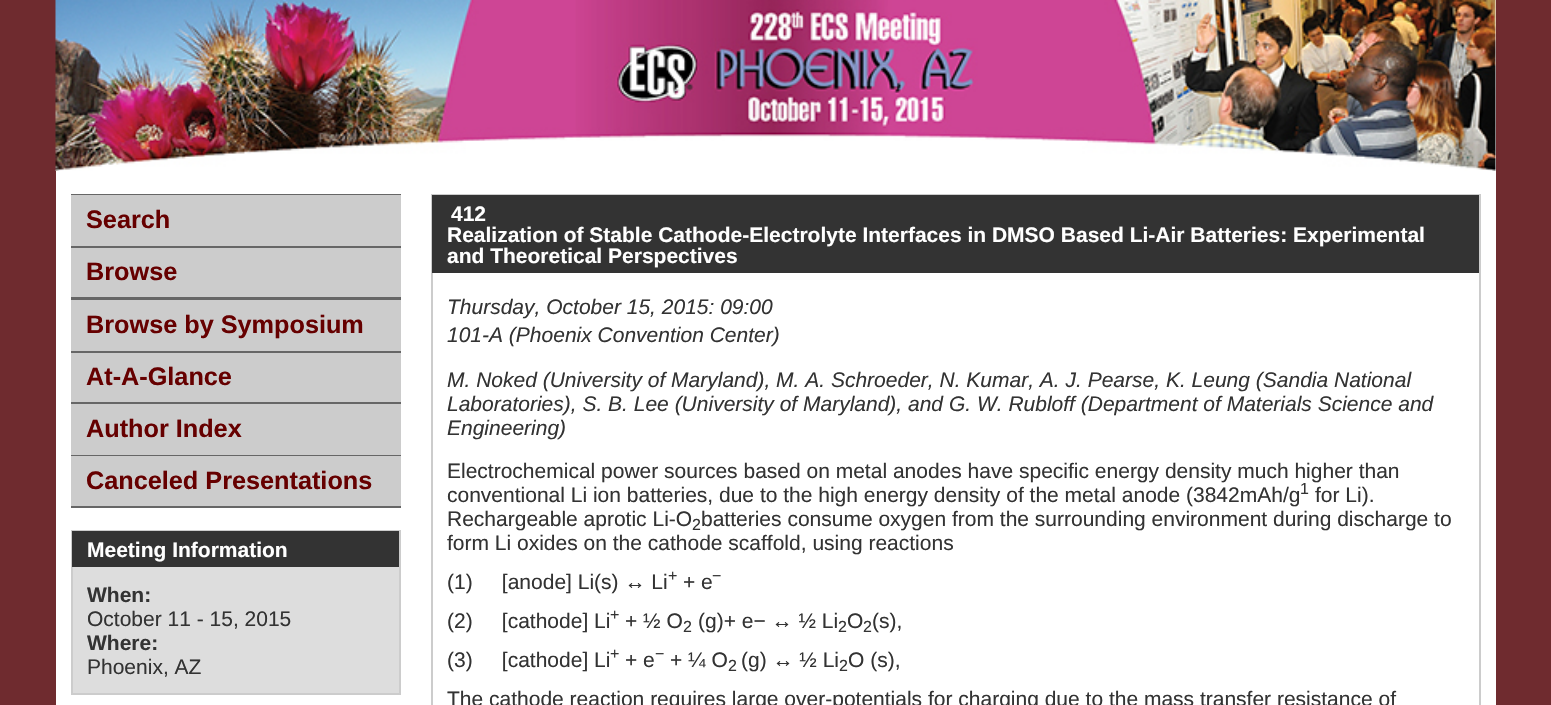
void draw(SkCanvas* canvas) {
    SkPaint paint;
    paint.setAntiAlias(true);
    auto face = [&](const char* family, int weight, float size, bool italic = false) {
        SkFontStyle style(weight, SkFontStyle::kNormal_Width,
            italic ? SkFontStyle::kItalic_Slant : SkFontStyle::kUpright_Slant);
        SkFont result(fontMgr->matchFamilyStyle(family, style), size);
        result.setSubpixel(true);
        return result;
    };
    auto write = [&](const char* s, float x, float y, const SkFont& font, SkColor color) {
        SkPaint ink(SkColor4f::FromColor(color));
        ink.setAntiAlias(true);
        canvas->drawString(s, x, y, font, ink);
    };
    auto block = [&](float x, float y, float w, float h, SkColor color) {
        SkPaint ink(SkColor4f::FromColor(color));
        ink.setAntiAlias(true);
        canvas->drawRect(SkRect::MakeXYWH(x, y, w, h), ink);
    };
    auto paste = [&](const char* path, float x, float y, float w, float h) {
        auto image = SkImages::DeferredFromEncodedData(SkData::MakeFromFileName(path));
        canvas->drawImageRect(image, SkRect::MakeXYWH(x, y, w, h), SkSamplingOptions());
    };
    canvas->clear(SkColorSetRGB(111, 43, 47));
    block(56, 0, 1440, 705, SK_ColorWHITE);
    paste("pic1.png", 55, 0, 1441, 171);
    block(71, 506, 330, 2, SkColorSetRGB(102, 102, 102));
    block(71, 194, 330, 1, SkColorSetRGB(102, 102, 102));
    block(71, 195, 330, 51, SkColorSetRGB(204, 204, 204));
    auto kFont1 = face("Liberation Sans", 700, 25.25f);
    write("Search", 86, 228, kFont1, SkColorSetRGB(102, 0, 0));
    block(71, 246, 330, 2, SkColorSetRGB(102, 102, 102));
    block(71, 248, 330, 49, SkColorSetRGB(204, 204, 204));
    write("Browse", 86, 280, kFont1, SkColorSetRGB(102, 0, 0));
    block(71, 297, 330, 3, SkColorSetRGB(102, 102, 102));
    block(71, 300, 330, 51, SkColorSetRGB(204, 204, 204));
    write("Browse by Symposium", 86, 333, kFont1, SkColorSetRGB(102, 0, 0));
    block(71, 351, 330, 2, SkColorSetRGB(102, 102, 102));
    block(71, 353, 330, 49, SkColorSetRGB(204, 204, 204));
    write("At-A-Glance", 86, 385, kFont1, SkColorSetRGB(102, 0, 0));
    block(71, 402, 330, 2, SkColorSetRGB(102, 102, 102));
    block(71, 404, 330, 51, SkColorSetRGB(204, 204, 204));
    write("Author Index", 86, 437, kFont1, SkColorSetRGB(102, 0, 0));
    block(71, 455, 330, 1, SkColorSetRGB(102, 102, 102));
    block(71, 456, 330, 50, SkColorSetRGB(204, 204, 204));
    write("Canceled Presentations", 86, 489, kFont1, SkColorSetRGB(102, 0, 0));
    block(73, 567, 326, 126, SkColorSetRGB(221, 221, 221));
    paint.setStyle(SkPaint::kStroke_Style);
    paint.setStrokeWidth(2);
    paint.setColor(SkColorSetRGB(204, 204, 204));
    canvas->drawRect(SkRect::MakeXYWH(72, 531, 328, 163), paint);
    block(72, 531, 327, 36, SkColorSetRGB(51, 51, 51));
    auto kFont2 = face("Liberation Sans", 700, 21);
    write("Meeting Information", 87, 557, kFont2, SK_ColorWHITE);
    write("When:", 87, 602, kFont2, SkColorSetRGB(51, 51, 51));
    auto kFont3 = face("Liberation Sans", 400, 21);
    write("October 11 - 15, 2015", 87, 626, kFont3, SkColorSetRGB(51, 51, 51));
    write("Where:", 87, 650, kFont2, SkColorSetRGB(51, 51, 51));
    write("Phoenix, AZ", 87, 674, kFont3, SkColorSetRGB(51, 51, 51));
    canvas->drawRect(SkRect::MakeXYWH(432, 195, 1048, 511), paint);
    block(432, 195, 1047, 78, SkColorSetRGB(51, 51, 51));
    write("412", 451, 221, kFont2, SK_ColorWHITE);
    write("Realization of Stable Cathode-Electrolyte Interfaces in DMSO Based Li-Air Batteries: Experimental", 447, 242, kFont2, SK_ColorWHITE);
    write("and Theoretical Perspectives", 447, 263, kFont2, SK_ColorWHITE);
    auto kFont4 = face("Liberation Sans", 400, 21, true);
    write("Thursday, October 15, 2015: 09:00", 447, 314, kFont4, SkColorSetRGB(51, 51, 51));
    write("101-A (Phoenix Convention Center)", 447, 342, kFont4, SkColorSetRGB(51, 51, 51));
    write("M. Noked (University of Maryland), M. A. Schroeder, N. Kumar, A. J. Pearse, K. Leung (Sandia National", 447, 387, kFont4, SkColorSetRGB(51, 51, 51));
    write("Laboratories), S. B. Lee (University of Maryland), and G. W. Rubloff (Department of Materials Science and", 447, 411, kFont4, SkColorSetRGB(51, 51, 51));
    write("Engineering)", 447, 435, kFont4, SkColorSetRGB(51, 51, 51));
    write("Electrochemical power sources based on metal anodes have specific energy density much higher than", 447, 478, kFont3, SkColorSetRGB(51, 51, 51));
    write("conventional Li ion batteries, due to the high energy density of the metal anode (3842mAh/g", 447, 502, kFont3, SkColorSetRGB(51, 51, 51));
    auto kFont5 = face("Liberation Sans", 400, 16);
    write("1", 1300, 494, kFont5, SkColorSetRGB(51, 51, 51));
    write("for Li).", 1315, 502, kFont3, SkColorSetRGB(51, 51, 51));
    write("Rechargeable aprotic Li-O", 447, 526, kFont3, SkColorSetRGB(51, 51, 51));
    write("2", 692, 530, kFont5, SkColorSetRGB(51, 51, 51));
    write("batteries consume oxygen from the surrounding environment during discharge to", 701, 526, kFont3, SkColorSetRGB(51, 51, 51));
    write("form Li oxides on the cathode scaffold, using reactions", 447, 550, kFont3, SkColorSetRGB(51, 51, 51));
    write("(1)     [anode] Li(s) ↔ Li", 447, 589, kFont3, SkColorSetRGB(51, 51, 51));
    write("+", 668, 581, kFont5, SkColorSetRGB(51, 51, 51));
    write("+ e", 683, 589, kFont3, SkColorSetRGB(51, 51, 51));
    write("−", 712, 581, kFont5, SkColorSetRGB(51, 51, 51));
    write("(2)     [cathode] Li", 447, 628, kFont3, SkColorSetRGB(51, 51, 51));
    write("+", 610, 620, kFont5, SkColorSetRGB(51, 51, 51));
    write("+ ½ O", 625, 628, kFont3, SkColorSetRGB(51, 51, 51));
    write("2", 683, 632, kFont5, SkColorSetRGB(51, 51, 51));
    write("(g)+ e− ↔ ½ Li", 698, 628, kFont3, SkColorSetRGB(51, 51, 51));
    write("2", 838, 632, kFont5, SkColorSetRGB(51, 51, 51));
    write("O", 847, 628, kFont3, SkColorSetRGB(51, 51, 51));
    write("2", 863, 632, kFont5, SkColorSetRGB(51, 51, 51));
    write("(s),", 872, 628, kFont3, SkColorSetRGB(51, 51, 51));
    write("(3)     [cathode] Li", 447, 667, kFont3, SkColorSetRGB(51, 51, 51));
    write("+", 610, 659, kFont5, SkColorSetRGB(51, 51, 51));
    write("+ e", 625, 667, kFont3, SkColorSetRGB(51, 51, 51));
    write("−", 655, 659, kFont5, SkColorSetRGB(51, 51, 51));
    write("+ ¼ O", 670, 667, kFont3, SkColorSetRGB(51, 51, 51));
    write("2", 728, 671, kFont5, SkColorSetRGB(51, 51, 51));
    write("(g) ↔ ½ Li", 741, 667, kFont3, SkColorSetRGB(51, 51, 51));
    write("2", 839, 671, kFont5, SkColorSetRGB(51, 51, 51));
    write("O (s),", 848, 667, kFont3, SkColorSetRGB(51, 51, 51));
    write("The cathode reaction requires large over-potentials for charging due to the mass transfer resistance of", 447, 706, kFont3, SkColorSetRGB(51, 51, 51));
}
